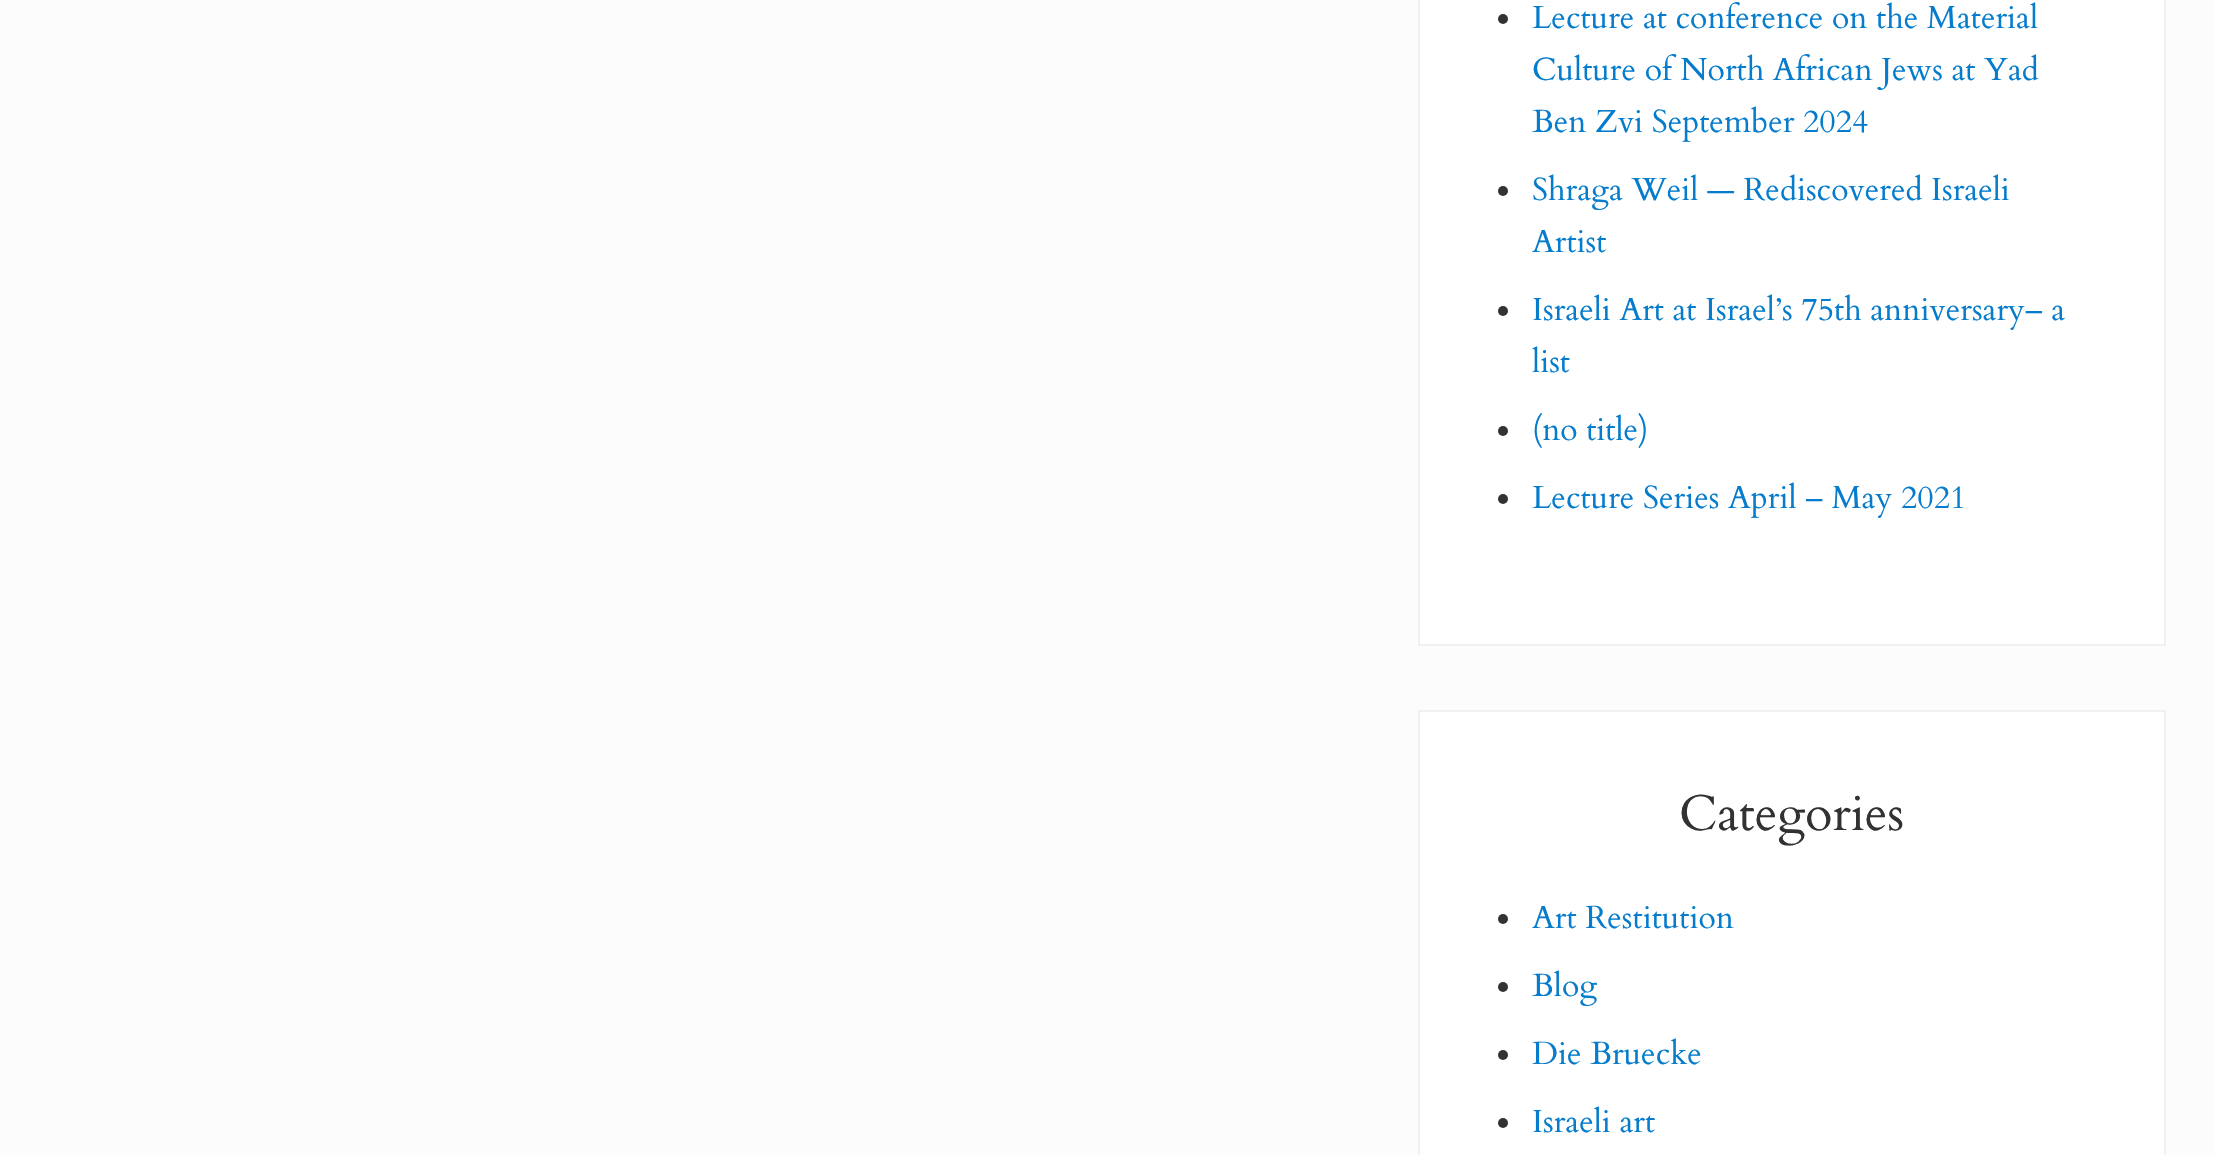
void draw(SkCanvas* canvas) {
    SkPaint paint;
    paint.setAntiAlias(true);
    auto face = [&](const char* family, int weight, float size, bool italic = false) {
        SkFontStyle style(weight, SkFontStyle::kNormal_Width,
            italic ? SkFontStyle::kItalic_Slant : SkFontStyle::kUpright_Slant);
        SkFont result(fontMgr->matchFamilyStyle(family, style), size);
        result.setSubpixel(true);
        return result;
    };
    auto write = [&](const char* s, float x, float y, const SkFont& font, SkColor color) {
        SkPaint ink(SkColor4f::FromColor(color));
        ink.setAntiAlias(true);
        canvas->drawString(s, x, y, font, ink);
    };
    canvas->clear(SkColorSetRGB(252, 252, 252));
    paint.setColor(SK_ColorWHITE);
    canvas->drawRect(SkRect::MakeXYWH(1419, -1, 746, 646), paint);
    paint.setStyle(SkPaint::kStroke_Style);
    paint.setStrokeWidth(2);
    paint.setColor(SkColorSetRGB(240, 240, 240));
    canvas->drawRect(SkRect::MakeXYWH(1419, -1, 746, 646), paint);
    paint.setStyle(SkPaint::kFill_Style);
    paint.setColor(SkColorSetRGB(50, 50, 50));
    canvas->drawCircle(1503, 19, 5, paint);
    auto kFont1 = face("Cardo", 400, 32);
    write("Lecture at conference on the Material", 1532, 28, kFont1, SkColorSetRGB(6, 124, 204));
    write("Culture of North African Jews at Yad", 1532, 80, kFont1, SkColorSetRGB(6, 124, 204));
    write("Ben Zvi September 2024", 1532, 132, kFont1, SkColorSetRGB(6, 124, 204));
    canvas->drawCircle(1503, 191, 5, paint);
    write("Shraga Weil — Rediscovered Israeli", 1532, 200, kFont1, SkColorSetRGB(6, 124, 204));
    write("Artist", 1532, 252, kFont1, SkColorSetRGB(6, 124, 204));
    canvas->drawCircle(1503, 311, 5, paint);
    write("Israeli Art at Israel’s 75th anniversary– a", 1532, 320, kFont1, SkColorSetRGB(6, 124, 204));
    write("list", 1532, 372, kFont1, SkColorSetRGB(6, 124, 204));
    canvas->drawCircle(1503, 431, 5, paint);
    write("(no title)", 1532, 440, kFont1, SkColorSetRGB(6, 124, 204));
    canvas->drawCircle(1503, 499, 5, paint);
    write("Lecture Series April – May 2021", 1532, 508, kFont1, SkColorSetRGB(6, 124, 204));
    paint.setColor(SK_ColorWHITE);
    canvas->drawRect(SkRect::MakeXYWH(1419, 711, 746, 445), paint);
    paint.setStyle(SkPaint::kStroke_Style);
    paint.setColor(SkColorSetRGB(240, 240, 240));
    canvas->drawRect(SkRect::MakeXYWH(1419, 711, 746, 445), paint);
    auto kFont2 = face("Cardo", 400, 50);
    write("Categories", 1679, 830, kFont2, SkColorSetRGB(50, 50, 50));
    paint.setStyle(SkPaint::kFill_Style);
    paint.setColor(SkColorSetRGB(50, 50, 50));
    canvas->drawCircle(1503, 919, 5, paint);
    write("Art Restitution", 1532, 928, kFont1, SkColorSetRGB(6, 124, 204));
    canvas->drawCircle(1503, 987, 5, paint);
    write("Blog", 1532, 996, kFont1, SkColorSetRGB(6, 124, 204));
    canvas->drawCircle(1503, 1055, 5, paint);
    write("Die Bruecke", 1532, 1064, kFont1, SkColorSetRGB(6, 124, 204));
    canvas->drawCircle(1503, 1123, 5, paint);
    write("Israeli art", 1532, 1132, kFont1, SkColorSetRGB(6, 124, 204));
}
